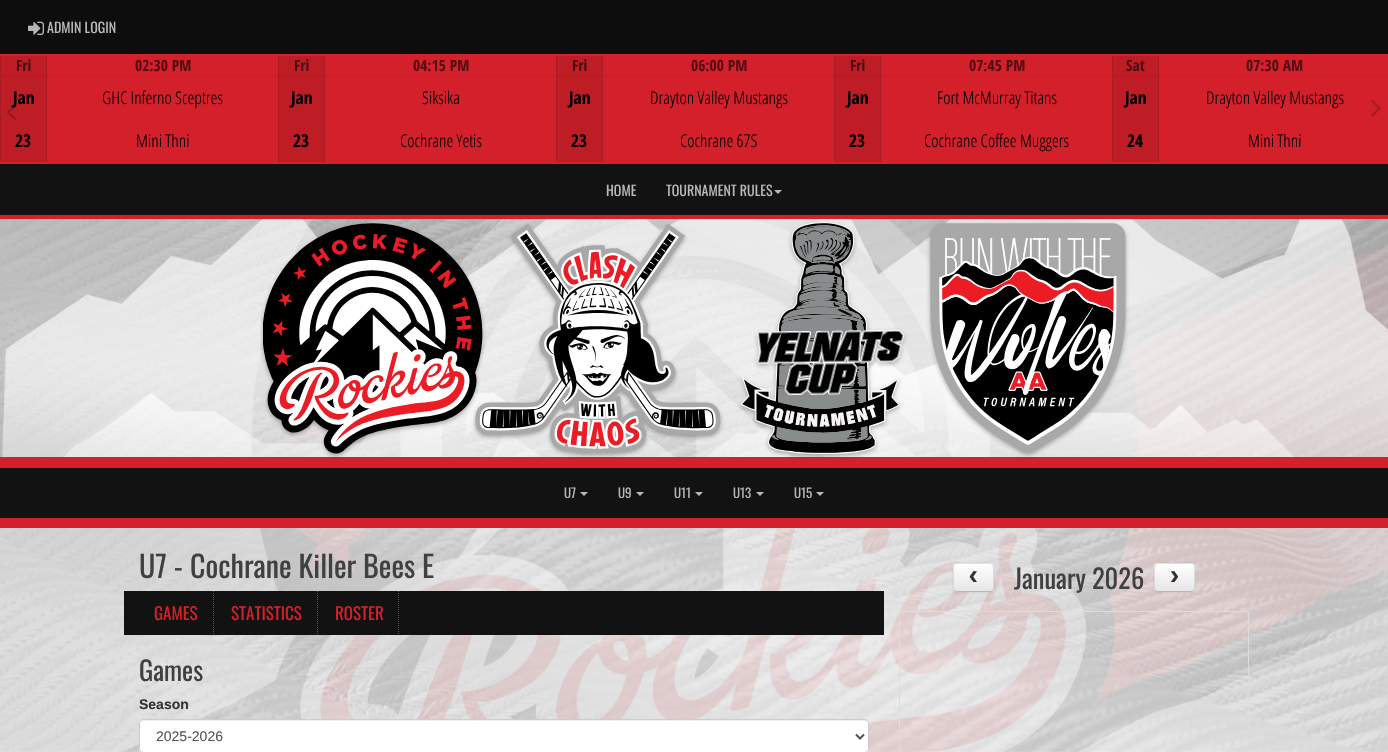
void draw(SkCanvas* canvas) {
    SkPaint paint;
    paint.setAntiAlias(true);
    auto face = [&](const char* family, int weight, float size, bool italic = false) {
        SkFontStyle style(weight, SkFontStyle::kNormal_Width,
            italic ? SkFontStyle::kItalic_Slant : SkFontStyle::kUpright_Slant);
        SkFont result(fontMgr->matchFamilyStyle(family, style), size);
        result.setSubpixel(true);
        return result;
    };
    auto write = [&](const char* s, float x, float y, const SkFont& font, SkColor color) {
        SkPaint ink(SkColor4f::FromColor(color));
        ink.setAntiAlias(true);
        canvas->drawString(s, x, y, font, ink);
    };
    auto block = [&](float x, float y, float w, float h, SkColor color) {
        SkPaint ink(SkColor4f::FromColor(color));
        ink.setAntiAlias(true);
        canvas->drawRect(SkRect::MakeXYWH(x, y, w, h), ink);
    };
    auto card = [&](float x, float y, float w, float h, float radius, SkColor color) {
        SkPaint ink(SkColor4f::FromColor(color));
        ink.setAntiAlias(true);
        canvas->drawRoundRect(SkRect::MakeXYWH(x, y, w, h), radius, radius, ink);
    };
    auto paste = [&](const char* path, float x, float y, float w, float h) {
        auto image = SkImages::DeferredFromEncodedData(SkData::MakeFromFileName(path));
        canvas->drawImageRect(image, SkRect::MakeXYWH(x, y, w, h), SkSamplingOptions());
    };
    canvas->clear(SK_ColorWHITE);
    block(0, 0, 1388, 54, SkColorSetRGB(13, 13, 13));
    paste("pic1.png", 28, 21, 16, 14);
    auto kFont1 = face("Oswald", 400, 14);
    write("ADMIN LOGIN", 47, 33, kFont1, SkColorSetRGB(184, 184, 184));
    block(0, 54, 1388, 110, SkColorSetRGB(211, 32, 42));
    block(0, 164, 1388, 51, SkColorSetRGB(18, 18, 18));
    block(0, 56, 1, 106, SkColorSetRGB(169, 26, 34));
    block(1, 56, 45, 106, SkColorSetRGB(190, 29, 38));
    block(46, 56, 1, 106, SkColorSetRGB(171, 26, 34));
    block(1, 75, 45, 1, SkColorSetRGB(179, 27, 36));
    auto kFont2 = face("Open Sans Condensed", 700, 15.5f);
    write("Fri", 16, 71, kFont2, SkColorSetRGB(76, 12, 15));
    auto kFont3 = face("Open Sans Condensed", 700, 17.5f);
    write("Jan", 13, 104, kFont3, SK_ColorBLACK);
    write("23", 15, 147, kFont3, SK_ColorBLACK);
    block(47, 75, 231, 1, SkColorSetRGB(198, 30, 40));
    write("02:30 PM", 135, 71, kFont2, SkColorSetRGB(84, 13, 17));
    auto kFont4 = face("Open Sans Condensed", 300, 17.5f);
    write("GHC Inferno Sceptres", 102, 104, kFont4, SK_ColorBLACK);
    write("Mini Thni", 136, 147, kFont4, SK_ColorBLACK);
    block(278, 56, 1, 106, SkColorSetRGB(169, 26, 34));
    block(279, 56, 45, 106, SkColorSetRGB(190, 29, 38));
    block(324, 56, 1, 106, SkColorSetRGB(171, 26, 34));
    block(279, 75, 45, 1, SkColorSetRGB(179, 27, 36));
    write("Fri", 294, 71, kFont2, SkColorSetRGB(76, 12, 15));
    write("Jan", 291, 104, kFont3, SK_ColorBLACK);
    write("23", 293, 147, kFont3, SK_ColorBLACK);
    block(325, 75, 231, 1, SkColorSetRGB(198, 30, 40));
    write("04:15 PM", 413, 71, kFont2, SkColorSetRGB(84, 13, 17));
    write("Siksika", 422, 104, kFont4, SK_ColorBLACK);
    write("Cochrane Yetis", 400, 147, kFont4, SK_ColorBLACK);
    block(556, 56, 1, 106, SkColorSetRGB(169, 26, 34));
    block(557, 56, 45, 106, SkColorSetRGB(190, 29, 38));
    block(602, 56, 1, 106, SkColorSetRGB(171, 26, 34));
    block(557, 75, 45, 1, SkColorSetRGB(179, 27, 36));
    write("Fri", 572, 71, kFont2, SkColorSetRGB(76, 12, 15));
    write("Jan", 569, 104, kFont3, SK_ColorBLACK);
    write("23", 571, 147, kFont3, SK_ColorBLACK);
    block(603, 75, 231, 1, SkColorSetRGB(198, 30, 40));
    write("06:00 PM", 691, 71, kFont2, SkColorSetRGB(84, 13, 17));
    write("Drayton Valley Mustangs", 650, 104, kFont4, SK_ColorBLACK);
    write("Cochrane 67S", 680, 147, kFont4, SK_ColorBLACK);
    block(834, 56, 1, 106, SkColorSetRGB(169, 26, 34));
    block(835, 56, 45, 106, SkColorSetRGB(190, 29, 38));
    block(880, 56, 1, 106, SkColorSetRGB(171, 26, 34));
    block(835, 75, 45, 1, SkColorSetRGB(179, 27, 36));
    write("Fri", 850, 71, kFont2, SkColorSetRGB(76, 12, 15));
    write("Jan", 847, 104, kFont3, SK_ColorBLACK);
    write("23", 849, 147, kFont3, SK_ColorBLACK);
    block(881, 75, 231, 1, SkColorSetRGB(198, 30, 40));
    write("07:45 PM", 969, 71, kFont2, SkColorSetRGB(84, 13, 17));
    write("Fort McMurray Titans", 937, 104, kFont4, SK_ColorBLACK);
    write("Cochrane Coffee Muggers", 924, 147, kFont4, SK_ColorBLACK);
    block(1112, 56, 1, 106, SkColorSetRGB(169, 26, 34));
    block(1113, 56, 45, 106, SkColorSetRGB(190, 29, 38));
    block(1158, 56, 1, 106, SkColorSetRGB(171, 26, 34));
    block(1113, 75, 45, 1, SkColorSetRGB(179, 27, 36));
    write("Sat", 1126, 71, kFont2, SkColorSetRGB(76, 12, 15));
    write("Jan", 1125, 104, kFont3, SK_ColorBLACK);
    write("24", 1127, 147, kFont3, SK_ColorBLACK);
    block(1159, 75, 229, 1, SkColorSetRGB(198, 30, 40));
    write("07:30 AM", 1246, 71, kFont2, SkColorSetRGB(84, 13, 17));
    write("Drayton Valley Mustangs", 1206, 104, kFont4, SK_ColorBLACK);
    write("Mini Thni", 1248, 147, kFont4, SK_ColorBLACK);
    paste("pic2.png", 1371, 100, 10, 17);
    paste("pic3.png", 6, 105, 11, 16);
    block(0, 215, 1388, 4, SkColorSetRGB(211, 32, 42));
    write("HOME", 606, 196, kFont1, SkColorSetRGB(184, 184, 184));
    write("TOURNAMENT RULES", 666, 196, kFont1, SkColorSetRGB(184, 184, 184));
    paint.setColor(SkColorSetRGB(184, 184, 184));
    canvas->drawPath(SkPathBuilder().moveTo(774, 190).lineTo(782, 190).lineTo(778, 194).close().detach(), paint);
    paste("pic4.png", 0, 219, 1388, 533);
    paste("pic5.png", 0, 219, 1388, 238);
    block(0, 457, 1388, 11, SkColorSetRGB(211, 32, 42));
    paste("pic6.png", 260, 221, 869, 238);
    block(0, 468, 1388, 50, SkColorSetRGB(18, 18, 18));
    auto kFont5 = face("Oswald", 400, 13);
    write("U7", 564, 498, kFont5, SkColorSetRGB(184, 184, 184));
    canvas->drawPath(SkPathBuilder().moveTo(580, 492).lineTo(588, 492).lineTo(584, 496).close().detach(), paint);
    write("U9", 618, 498, kFont5, SkColorSetRGB(184, 184, 184));
    canvas->drawPath(SkPathBuilder().moveTo(636, 492).lineTo(644, 492).lineTo(640, 496).close().detach(), paint);
    write("U11", 674, 498, kFont5, SkColorSetRGB(184, 184, 184));
    canvas->drawPath(SkPathBuilder().moveTo(695, 492).lineTo(703, 492).lineTo(699, 496).close().detach(), paint);
    write("U13", 733, 498, kFont5, SkColorSetRGB(184, 184, 184));
    canvas->drawPath(SkPathBuilder().moveTo(756, 492).lineTo(764, 492).lineTo(760, 496).close().detach(), paint);
    write("U15", 794, 498, kFont5, SkColorSetRGB(184, 184, 184));
    canvas->drawPath(SkPathBuilder().moveTo(816, 492).lineTo(824, 492).lineTo(820, 496).close().detach(), paint);
    block(0, 518, 1388, 10, SkColorSetRGB(211, 32, 42));
    block(0, 528, 1388, 224, SkColorSetARGB(153, 255, 255, 255));
    auto kFont6 = face("Oswald", 400, 30);
    write("U7 -", 139, 578, kFont6, SkColorSetRGB(64, 64, 64));
    write("Cochrane Killer Bees E", 190, 578, kFont6, SkColorSetRGB(64, 64, 64));
    block(124, 591, 760, 44, SkColorSetRGB(18, 18, 18));
    paint.setStyle(SkPaint::kStroke_Style);
    paint.setStrokeWidth(1);
    paint.setColor(SkColorSetRGB(89, 89, 89));
    paint.setPathEffect(SkDashPathEffect::Make({{1, 1}}, 0));
    canvas->drawPath(SkPathBuilder().moveTo(213.5f, 591).lineTo(213.5f, 635).detach(), paint);
    paint.setPathEffect(nullptr);
    auto kFont7 = face("Oswald", 400, 17);
    write("GAMES", 154, 620, kFont7, SkColorSetRGB(211, 32, 42));
    paint.setPathEffect(SkDashPathEffect::Make({{1, 1}}, 0));
    canvas->drawPath(SkPathBuilder().moveTo(317.5f, 591).lineTo(317.5f, 635).detach(), paint);
    paint.setPathEffect(nullptr);
    write("STATISTICS", 231, 620, kFont7, SkColorSetRGB(211, 32, 42));
    paint.setPathEffect(SkDashPathEffect::Make({{1, 1}}, 0));
    canvas->drawPath(SkPathBuilder().moveTo(398.5f, 591).lineTo(398.5f, 635).detach(), paint);
    paint.setPathEffect(nullptr);
    write("ROSTER", 335, 620, kFont7, SkColorSetRGB(211, 32, 42));
    auto kFont8 = face("Oswald", 400, 26.5f);
    write("Games", 139, 681, kFont8, SkColorSetRGB(64, 64, 64));
    auto kFont9 = face("Liberation Sans", 700, 14);
    write("Season", 139, 709, kFont9, SkColorSetRGB(51, 51, 51));
    card(139, 719, 730, 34, 4, SK_ColorWHITE);
    paint.setStyle(SkPaint::kFill_Style);
    paint.setColor(SkColorSetRGB(236, 236, 236));
    canvas->drawPath(SkPathBuilder().moveTo(143, 721).lineTo(865, 721).cubicTo(867, 721, 868, 722, 868, 724).cubicTo(868, 722, 867, 720, 865, 720).lineTo(143, 720).cubicTo(141, 720, 140, 722, 140, 724).cubicTo(140, 722, 141, 721, 143, 721).close().detach(), paint);
    paint.setStyle(SkPaint::kStroke_Style);
    paint.setColor(SkColorSetRGB(204, 204, 204));
    canvas->drawRoundRect(SkRect::MakeXYWH(139.5f, 719.5f, 729, 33), 3.5f, 3.5f, paint);
    paint.setStrokeWidth(2);
    paint.setColor(SkColorSetRGB(85, 85, 85));
    canvas->drawPath(SkPathBuilder().moveTo(856, 734.5f).lineTo(860, 738.5f).lineTo(864, 734.5f).detach(), paint);
    auto kFont10 = face("Liberation Sans", 400, 14);
    write("2025-2026", 156, 741, kFont10, SkColorSetRGB(85, 85, 85));
    paint.setStyle(SkPaint::kFill_Style);
    paint.setColor(SkColorSetARGB(13, 0, 0, 0));
    paint.setMaskFilter(SkMaskFilter::MakeBlur(kNormal_SkBlurStyle, 1));
    canvas->drawRoundRect(SkRect::MakeXYWH(953, 564, 41, 29), 4, 4, paint);
    paint.setMaskFilter(nullptr);
    card(953, 563, 41, 29, 4, SkColorSetRGB(245, 245, 245));
    canvas->save();
    canvas->clipPath(SkPathBuilder().moveTo(957, 563).lineTo(990, 563).cubicTo(992, 563, 994, 565, 994, 567).lineTo(994, 588).cubicTo(994, 590, 992, 592, 990, 592).lineTo(957, 592).cubicTo(955, 592, 953, 590, 953, 588).lineTo(953, 567).cubicTo(953, 565, 955, 563, 957, 563).close().detach(), true);
    {
        const SkColor colors[] = {SK_ColorWHITE, SkColorSetRGB(230, 230, 230)};
        const float stops[] = {0, 1};
        const SkPoint ends[] = {{974, 564}, {974, 591}};
        paint.setShader(SkGradientShader::MakeLinear(ends, colors, stops, 2, SkTileMode::kClamp));
        paint.setAlpha(255);
    }
    canvas->drawRect(SkRect::MakeXYWH(953, 564, 41, 27), paint);
    canvas->restore();
    paint.setStyle(SkPaint::kStroke_Style);
    paint.setStrokeWidth(1);
    paint.setShader(nullptr);
    paint.setColor(SkColorSetARGB(64, 0, 0, 0));
    canvas->drawPath(SkPathBuilder().moveTo(992.5f, 590.5f).cubicTo(992, 591, 991, 591.5f, 990, 591.5f).lineTo(957, 591.5f).cubicTo(956, 591.5f, 955, 591, 954.5f, 590.5f).detach(), paint);
    paint.setColor(SkColorSetARGB(26, 0, 0, 0));
    canvas->drawPath(SkPathBuilder().moveTo(954.5f, 590.5f).cubicTo(952.5f, 588.5f, 953.5f, 580, 953.5f, 577.5f).cubicTo(953.5f, 559, 952.5f, 563.5f, 973.5f, 563.5f).cubicTo(994.5f, 563.5f, 993.5f, 559, 993.5f, 577.5f).cubicTo(993.5f, 580, 994.5f, 588.5f, 992.5f, 590.5f).detach(), paint);
    auto kFont11 = face("Liberation Mono", 700, 28);
    write("‹", 965, 584, kFont11, SkColorSetRGB(51, 51, 51));
    write("January 2026", 1014, 589, kFont8, SkColorSetRGB(64, 64, 64));
    paint.setStyle(SkPaint::kFill_Style);
    paint.setColor(SkColorSetARGB(13, 0, 0, 0));
    paint.setMaskFilter(SkMaskFilter::MakeBlur(kNormal_SkBlurStyle, 1));
    canvas->drawRoundRect(SkRect::MakeXYWH(1154, 564, 41, 29), 4, 4, paint);
    paint.setMaskFilter(nullptr);
    card(1154, 563, 41, 29, 4, SkColorSetRGB(245, 245, 245));
    canvas->save();
    canvas->clipPath(SkPathBuilder().moveTo(1158, 563).lineTo(1191, 563).cubicTo(1193, 563, 1195, 565, 1195, 567).lineTo(1195, 588).cubicTo(1195, 590, 1193, 592, 1191, 592).lineTo(1158, 592).cubicTo(1156, 592, 1154, 590, 1154, 588).lineTo(1154, 567).cubicTo(1154, 565, 1156, 563, 1158, 563).close().detach(), true);
    {
        const SkColor colors[] = {SK_ColorWHITE, SkColorSetRGB(230, 230, 230)};
        const float stops[] = {0, 1};
        const SkPoint ends[] = {{1175, 564}, {1175, 591}};
        paint.setShader(SkGradientShader::MakeLinear(ends, colors, stops, 2, SkTileMode::kClamp));
        paint.setAlpha(255);
    }
    canvas->drawRect(SkRect::MakeXYWH(1154, 564, 41, 27), paint);
    canvas->restore();
    paint.setStyle(SkPaint::kStroke_Style);
    paint.setShader(nullptr);
    paint.setColor(SkColorSetARGB(64, 0, 0, 0));
    canvas->drawPath(SkPathBuilder().moveTo(1193.5f, 590.5f).cubicTo(1193, 591, 1192, 591.5f, 1191, 591.5f).lineTo(1158, 591.5f).cubicTo(1157, 591.5f, 1156, 591, 1155.5f, 590.5f).detach(), paint);
    paint.setColor(SkColorSetARGB(26, 0, 0, 0));
    canvas->drawPath(SkPathBuilder().moveTo(1155.5f, 590.5f).cubicTo(1153.5f, 588.5f, 1154.5f, 580, 1154.5f, 577.5f).cubicTo(1154.5f, 559, 1153.5f, 563.5f, 1174.5f, 563.5f).cubicTo(1195.5f, 563.5f, 1194.5f, 559, 1194.5f, 577.5f).cubicTo(1194.5f, 580, 1195.5f, 588.5f, 1193.5f, 590.5f).detach(), paint);
    write("›", 1166, 584, kFont11, SkColorSetRGB(51, 51, 51));
    paint.setColor(SkColorSetRGB(221, 221, 221));
    canvas->drawRect(SkRect::MakeXYWH(899.5f, 611.5f, 349, 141), paint);
}
